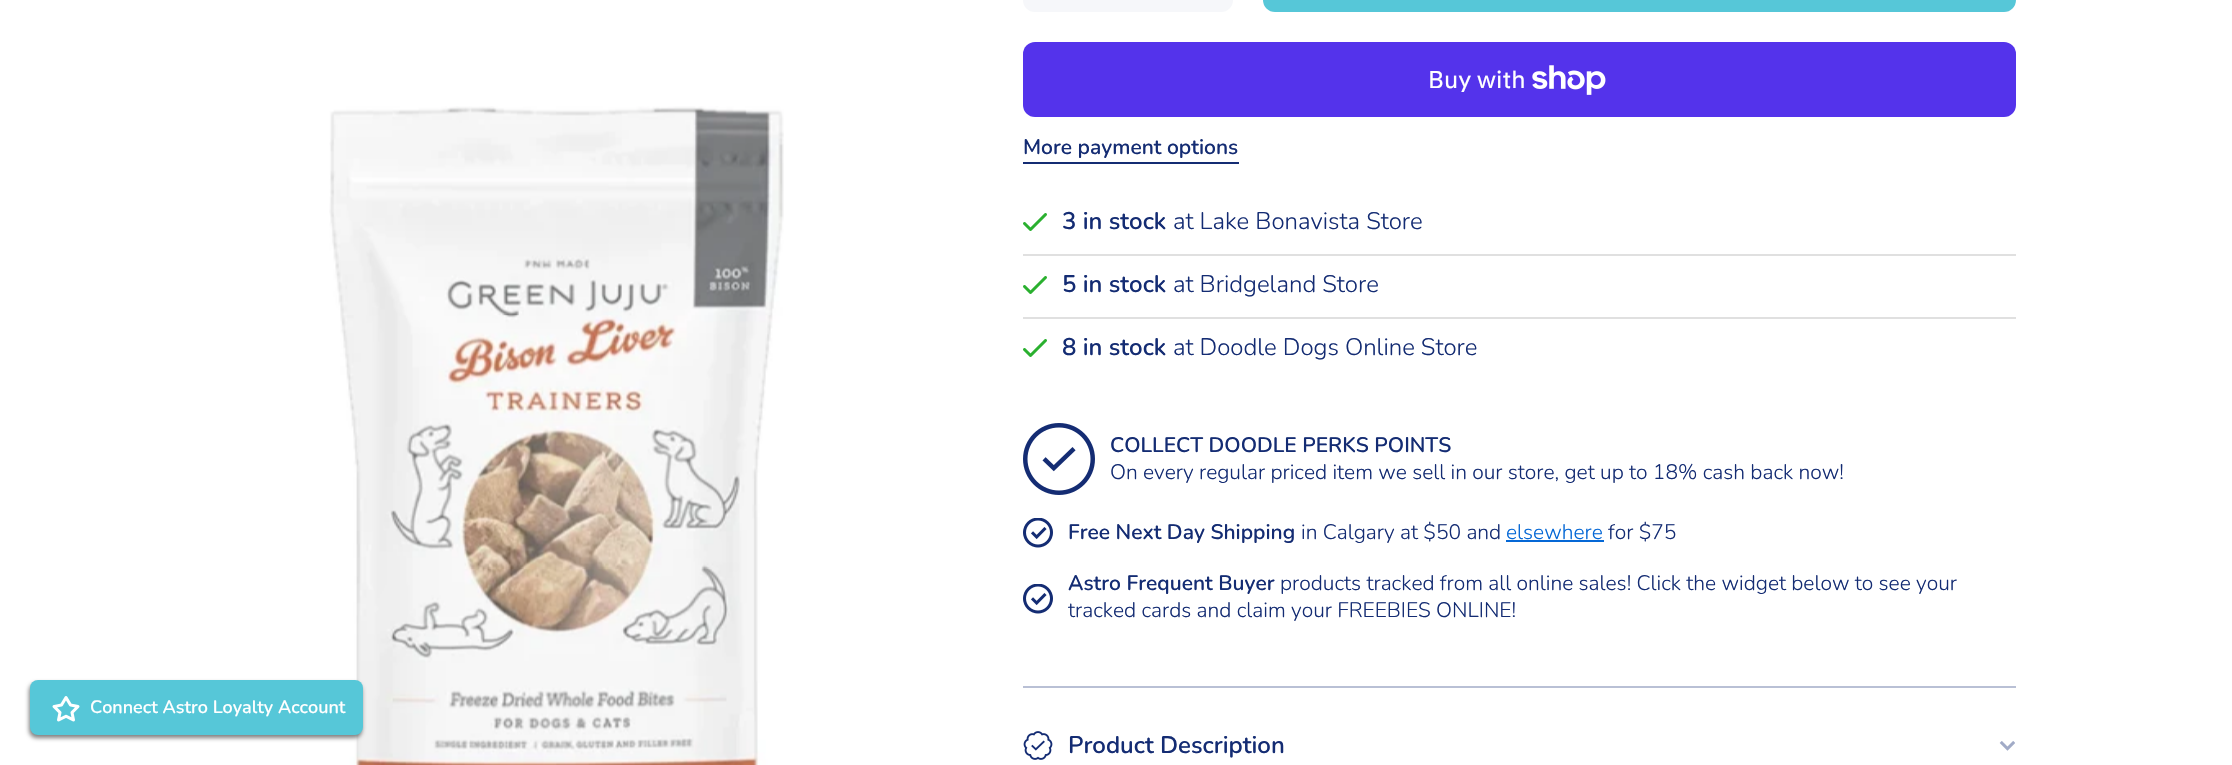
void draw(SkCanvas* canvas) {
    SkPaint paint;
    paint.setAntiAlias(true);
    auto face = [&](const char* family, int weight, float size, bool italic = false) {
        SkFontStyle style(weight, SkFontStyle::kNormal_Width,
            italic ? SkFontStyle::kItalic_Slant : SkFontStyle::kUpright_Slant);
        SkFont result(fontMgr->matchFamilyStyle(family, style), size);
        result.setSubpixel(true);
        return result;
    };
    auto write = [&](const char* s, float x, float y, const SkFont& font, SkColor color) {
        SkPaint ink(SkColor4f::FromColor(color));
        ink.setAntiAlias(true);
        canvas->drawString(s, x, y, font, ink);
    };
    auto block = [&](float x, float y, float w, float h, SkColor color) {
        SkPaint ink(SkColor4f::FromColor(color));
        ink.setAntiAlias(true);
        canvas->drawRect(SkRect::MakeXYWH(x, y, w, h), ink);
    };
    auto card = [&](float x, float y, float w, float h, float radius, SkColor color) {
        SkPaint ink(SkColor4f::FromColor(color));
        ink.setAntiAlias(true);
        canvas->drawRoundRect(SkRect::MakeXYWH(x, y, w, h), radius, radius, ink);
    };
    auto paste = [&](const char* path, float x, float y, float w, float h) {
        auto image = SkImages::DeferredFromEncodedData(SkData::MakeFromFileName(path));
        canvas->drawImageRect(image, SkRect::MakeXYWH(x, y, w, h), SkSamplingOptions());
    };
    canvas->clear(SK_ColorWHITE);
    paste("pic2.png", 329, 106, 455, 659);
    paint.setColor(SkColorSetARGB(128, 0, 0, 0));
    paint.setMaskFilter(SkMaskFilter::MakeBlur(kNormal_SkBlurStyle, 2));
    canvas->drawRoundRect(SkRect::MakeXYWH(29, 683, 333, 55), 8, 8, paint);
    paint.setMaskFilter(nullptr);
    card(30, 680, 333, 55, 8, SkColorSetRGB(86, 199, 216));
    paste("pic1.png", 52, 696, 28, 26);
    auto kFont1 = face("Nunito", 600, 18);
    write("Connect Astro Loyalty Account", 90, 713, kFont1, SK_ColorWHITE);
    card(1023, -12, 210, 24, 12, SkColorSetRGB(246, 247, 250));
    card(1263, -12, 753, 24, 12, SkColorSetRGB(86, 199, 216));
    card(1023, 42, 993, 75, 12, SkColorSetRGB(84, 51, 235));
    auto kFont2 = face("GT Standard", 400, 24);
    write("Buy with", 1428, 88, kFont2, SK_ColorWHITE);
    paste("pic3.png", 1532, 65, 74, 30);
    auto kFont3 = face("Nunito", 600, 21);
    write("More payment options", 1023, 154, kFont3, SkColorSetRGB(20, 44, 115));
    block(1023, 162, 216, 2, SkColorSetRGB(20, 44, 115));
    block(1023, 254, 993, 2, SkColorSetRGB(224, 224, 224));
    paste("pic4.png", 1023, 213, 24, 18);
    auto kFont4 = face("Nunito", 600, 24);
    write("3 in stock", 1062, 229, kFont4, SkColorSetRGB(20, 44, 115));
    auto kFont5 = face("Nunito", 300, 24);
    write("at Lake Bonavista Store", 1173, 229, kFont5, SkColorSetRGB(20, 44, 115));
    block(1023, 317, 993, 2, SkColorSetRGB(224, 224, 224));
    paste("pic4.png", 1023, 276, 24, 18);
    write("5 in stock", 1062, 292, kFont4, SkColorSetRGB(20, 44, 115));
    write("at Bridgeland Store", 1173, 292, kFont5, SkColorSetRGB(20, 44, 115));
    paste("pic4.png", 1023, 339, 24, 18);
    write("8 in stock", 1062, 355, kFont4, SkColorSetRGB(20, 44, 115));
    write("at Doodle Dogs Online Store", 1173, 355, kFont5, SkColorSetRGB(20, 44, 115));
    paste("pic5.png", 1023, 423, 72, 72);
    write("COLLECT DOODLE PERKS POINTS", 1110, 452, kFont3, SkColorSetRGB(20, 44, 115));
    auto kFont6 = face("Nunito", 300, 21);
    write("On every regular priced item we sell in our store, get up to 18% cash back now!", 1110, 479, kFont6, SkColorSetRGB(20, 44, 115));
    paste("pic6.png", 1023, 518, 30, 30);
    write("Free Next Day Shipping", 1068, 539, kFont3, SkColorSetRGB(20, 44, 115));
    write("in Calgary at $50 and", 1301, 539, kFont6, SkColorSetRGB(20, 44, 115));
    write("elsewhere", 1506, 539, kFont6, SkColorSetRGB(5, 104, 214));
    block(1506, 540, 98, 2, SkColorSetRGB(5, 104, 214));
    write("for $75", 1608, 539, kFont6, SkColorSetRGB(20, 44, 115));
    paste("pic6.png", 1023, 584, 30, 30);
    write("Astro Frequent Buyer", 1068, 590, kFont3, SkColorSetRGB(20, 44, 115));
    write("products tracked from all online sales! Click the widget below to see your", 1280, 590, kFont6, SkColorSetRGB(20, 44, 115));
    write("tracked cards and claim your FREEBIES ONLINE!", 1068, 617, kFont6, SkColorSetRGB(20, 44, 115));
    block(1023, 686, 993, 2, SkColorSetRGB(185, 192, 213));
    paste("pic7.png", 1023, 731, 30, 29);
    write("Product Description", 1068, 753, kFont4, SkColorSetRGB(20, 44, 115));
    paste("pic8.png", 1999, 741, 16, 10);
}
